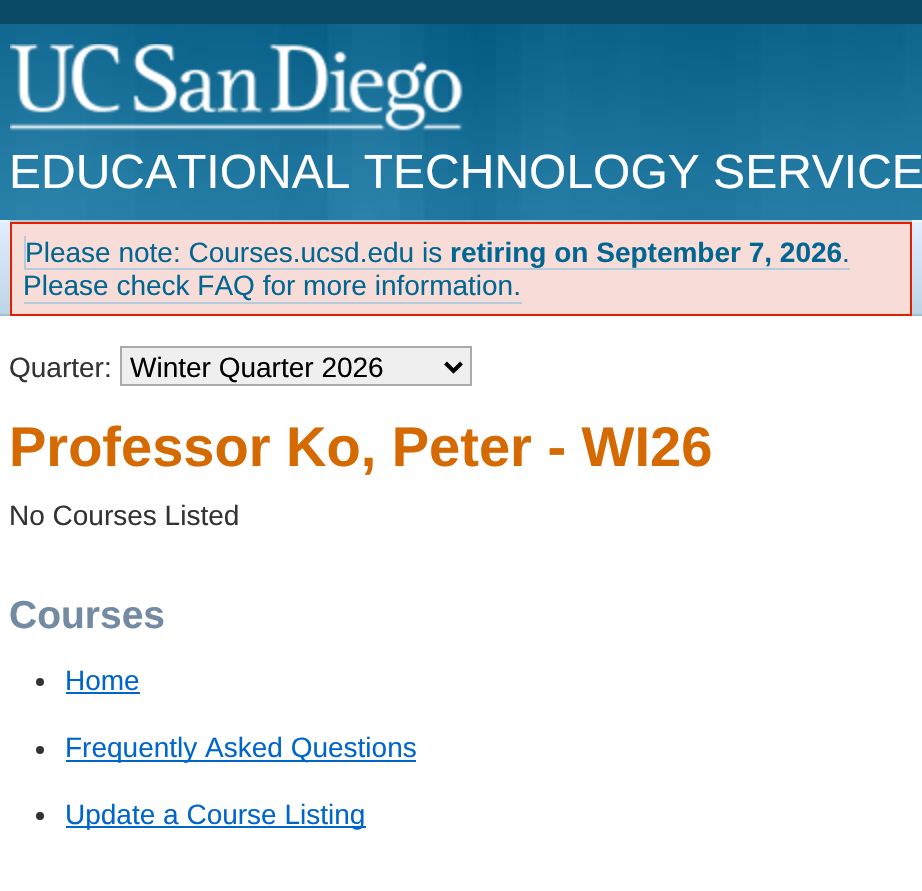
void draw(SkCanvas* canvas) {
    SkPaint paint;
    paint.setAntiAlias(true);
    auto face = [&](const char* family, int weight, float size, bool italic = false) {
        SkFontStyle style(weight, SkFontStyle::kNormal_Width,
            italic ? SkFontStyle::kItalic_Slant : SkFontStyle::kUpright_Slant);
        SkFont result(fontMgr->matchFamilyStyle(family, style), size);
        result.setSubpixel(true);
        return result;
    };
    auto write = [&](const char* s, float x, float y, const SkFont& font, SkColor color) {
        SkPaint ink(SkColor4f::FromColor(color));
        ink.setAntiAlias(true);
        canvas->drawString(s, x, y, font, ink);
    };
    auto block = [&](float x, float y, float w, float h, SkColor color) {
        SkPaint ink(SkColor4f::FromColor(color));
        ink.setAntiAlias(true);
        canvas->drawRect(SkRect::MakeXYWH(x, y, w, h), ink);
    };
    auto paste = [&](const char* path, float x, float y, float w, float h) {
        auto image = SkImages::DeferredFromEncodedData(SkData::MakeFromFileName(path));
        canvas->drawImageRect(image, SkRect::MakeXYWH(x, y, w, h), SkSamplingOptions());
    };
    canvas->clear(SK_ColorWHITE);
    block(0, 0, 922, 24, SkColorSetRGB(11, 74, 103));
    paste("pic1.png", 0, 24, 922, 196);
    paste("pic2.png", 10, 44, 453, 87);
    auto kFont1 = face("Liberation Sans", 400, 48);
    write("EDUCATIONAL TECHNOLOGY SERVICE", 9, 188, kFont1, SK_ColorWHITE);
    {
        const SkColor colors[] = {SkColorSetRGB(240, 250, 255), SkColorSetRGB(225, 236, 255), SkColorSetRGB(188, 214, 230), SkColorSetRGB(149, 175, 201)};
        const float stops[] = {0, 0.03f, 0.97f, 1};
        const SkPoint ends[] = {{461, 220}, {461, 316}};
        paint.setShader(SkGradientShader::MakeLinear(ends, colors, stops, 4, SkTileMode::kClamp));
        paint.setAlpha(255);
    }
    canvas->drawRect(SkRect::MakeXYWH(0, 220, 922, 96), paint);
    block(10, 220, 902, 2, SkColorSetRGB(179, 203, 220));
    paint.setShader(nullptr);
    paint.setColor(SkColorSetRGB(247, 220, 215));
    canvas->drawRect(SkRect::MakeXYWH(11, 223, 900, 92), paint);
    paint.setStyle(SkPaint::kStroke_Style);
    paint.setStrokeWidth(2);
    paint.setColor(SkColorSetRGB(222, 35, 0));
    canvas->drawRect(SkRect::MakeXYWH(11, 223, 900, 92), paint);
    auto kFont2 = face("Liberation Sans", 400, 28);
    write("Please note: Courses.ucsd.edu is", 25, 262, kFont2, SkColorSetRGB(1, 102, 145));
    block(24, 268, 826, 2, SkColorSetRGB(179, 203, 220));
    block(24, 236, 2, 34, SkColorSetRGB(179, 203, 220));
    auto kFont3 = face("Liberation Sans", 700, 28);
    write("retiring on September 7, 2026", 450, 262, kFont3, SkColorSetRGB(1, 102, 145));
    write(".", 842, 262, kFont2, SkColorSetRGB(1, 102, 145));
    write("Please check FAQ for more information.", 23, 295, kFont2, SkColorSetRGB(1, 102, 145));
    block(24, 302, 498, 2, SkColorSetRGB(179, 203, 220));
    write("Quarter:", 9, 377, kFont2, SkColorSetRGB(51, 51, 51));
    paint.setStyle(SkPaint::kFill_Style);
    paint.setColor(SkColorSetRGB(239, 239, 239));
    canvas->drawRect(SkRect::MakeXYWH(121, 347, 350, 38), paint);
    paint.setStyle(SkPaint::kStroke_Style);
    paint.setColor(SkColorSetRGB(170, 170, 170));
    canvas->drawRect(SkRect::MakeXYWH(121, 347, 350, 38), paint);
    paint.setStrokeWidth(4);
    paint.setColor(SK_ColorBLACK);
    canvas->drawPath(SkPathBuilder().moveTo(445.5f, 363).lineTo(453.5f, 371).lineTo(461.5f, 363).detach(), paint);
    write("Winter Quarter 2026", 130, 377, kFont2, SK_ColorBLACK);
    auto kFont4 = face("Liberation Sans", 700, 56);
    write("Professor Ko, Peter - WI26", 9, 466, kFont4, SkColorSetRGB(213, 106, 3));
    write("No Courses Listed", 9, 525, kFont2, SkColorSetRGB(51, 51, 51));
    auto kFont5 = face("Liberation Sans", 700, 39);
    write("Courses", 9, 628, kFont5, SkColorSetRGB(115, 138, 163));
    paint.setStyle(SkPaint::kFill_Style);
    paint.setColor(SkColorSetRGB(51, 51, 51));
    canvas->drawCircle(40, 682, 4, paint);
    write("Home", 65, 690, kFont2, SkColorSetRGB(0, 102, 204));
    block(66, 692, 74, 2, SkColorSetRGB(0, 102, 204));
    canvas->drawCircle(40, 750, 4, paint);
    block(66, 760, 350, 2, SkColorSetRGB(0, 102, 204));
    write("Frequently Asked Questions", 65, 757, kFont2, SkColorSetRGB(0, 102, 204));
    canvas->drawCircle(40, 816, 4, paint);
    block(66, 826, 300, 2, SkColorSetRGB(0, 102, 204));
    write("Update a Course Listing", 65, 824, kFont2, SkColorSetRGB(0, 102, 204));
}
